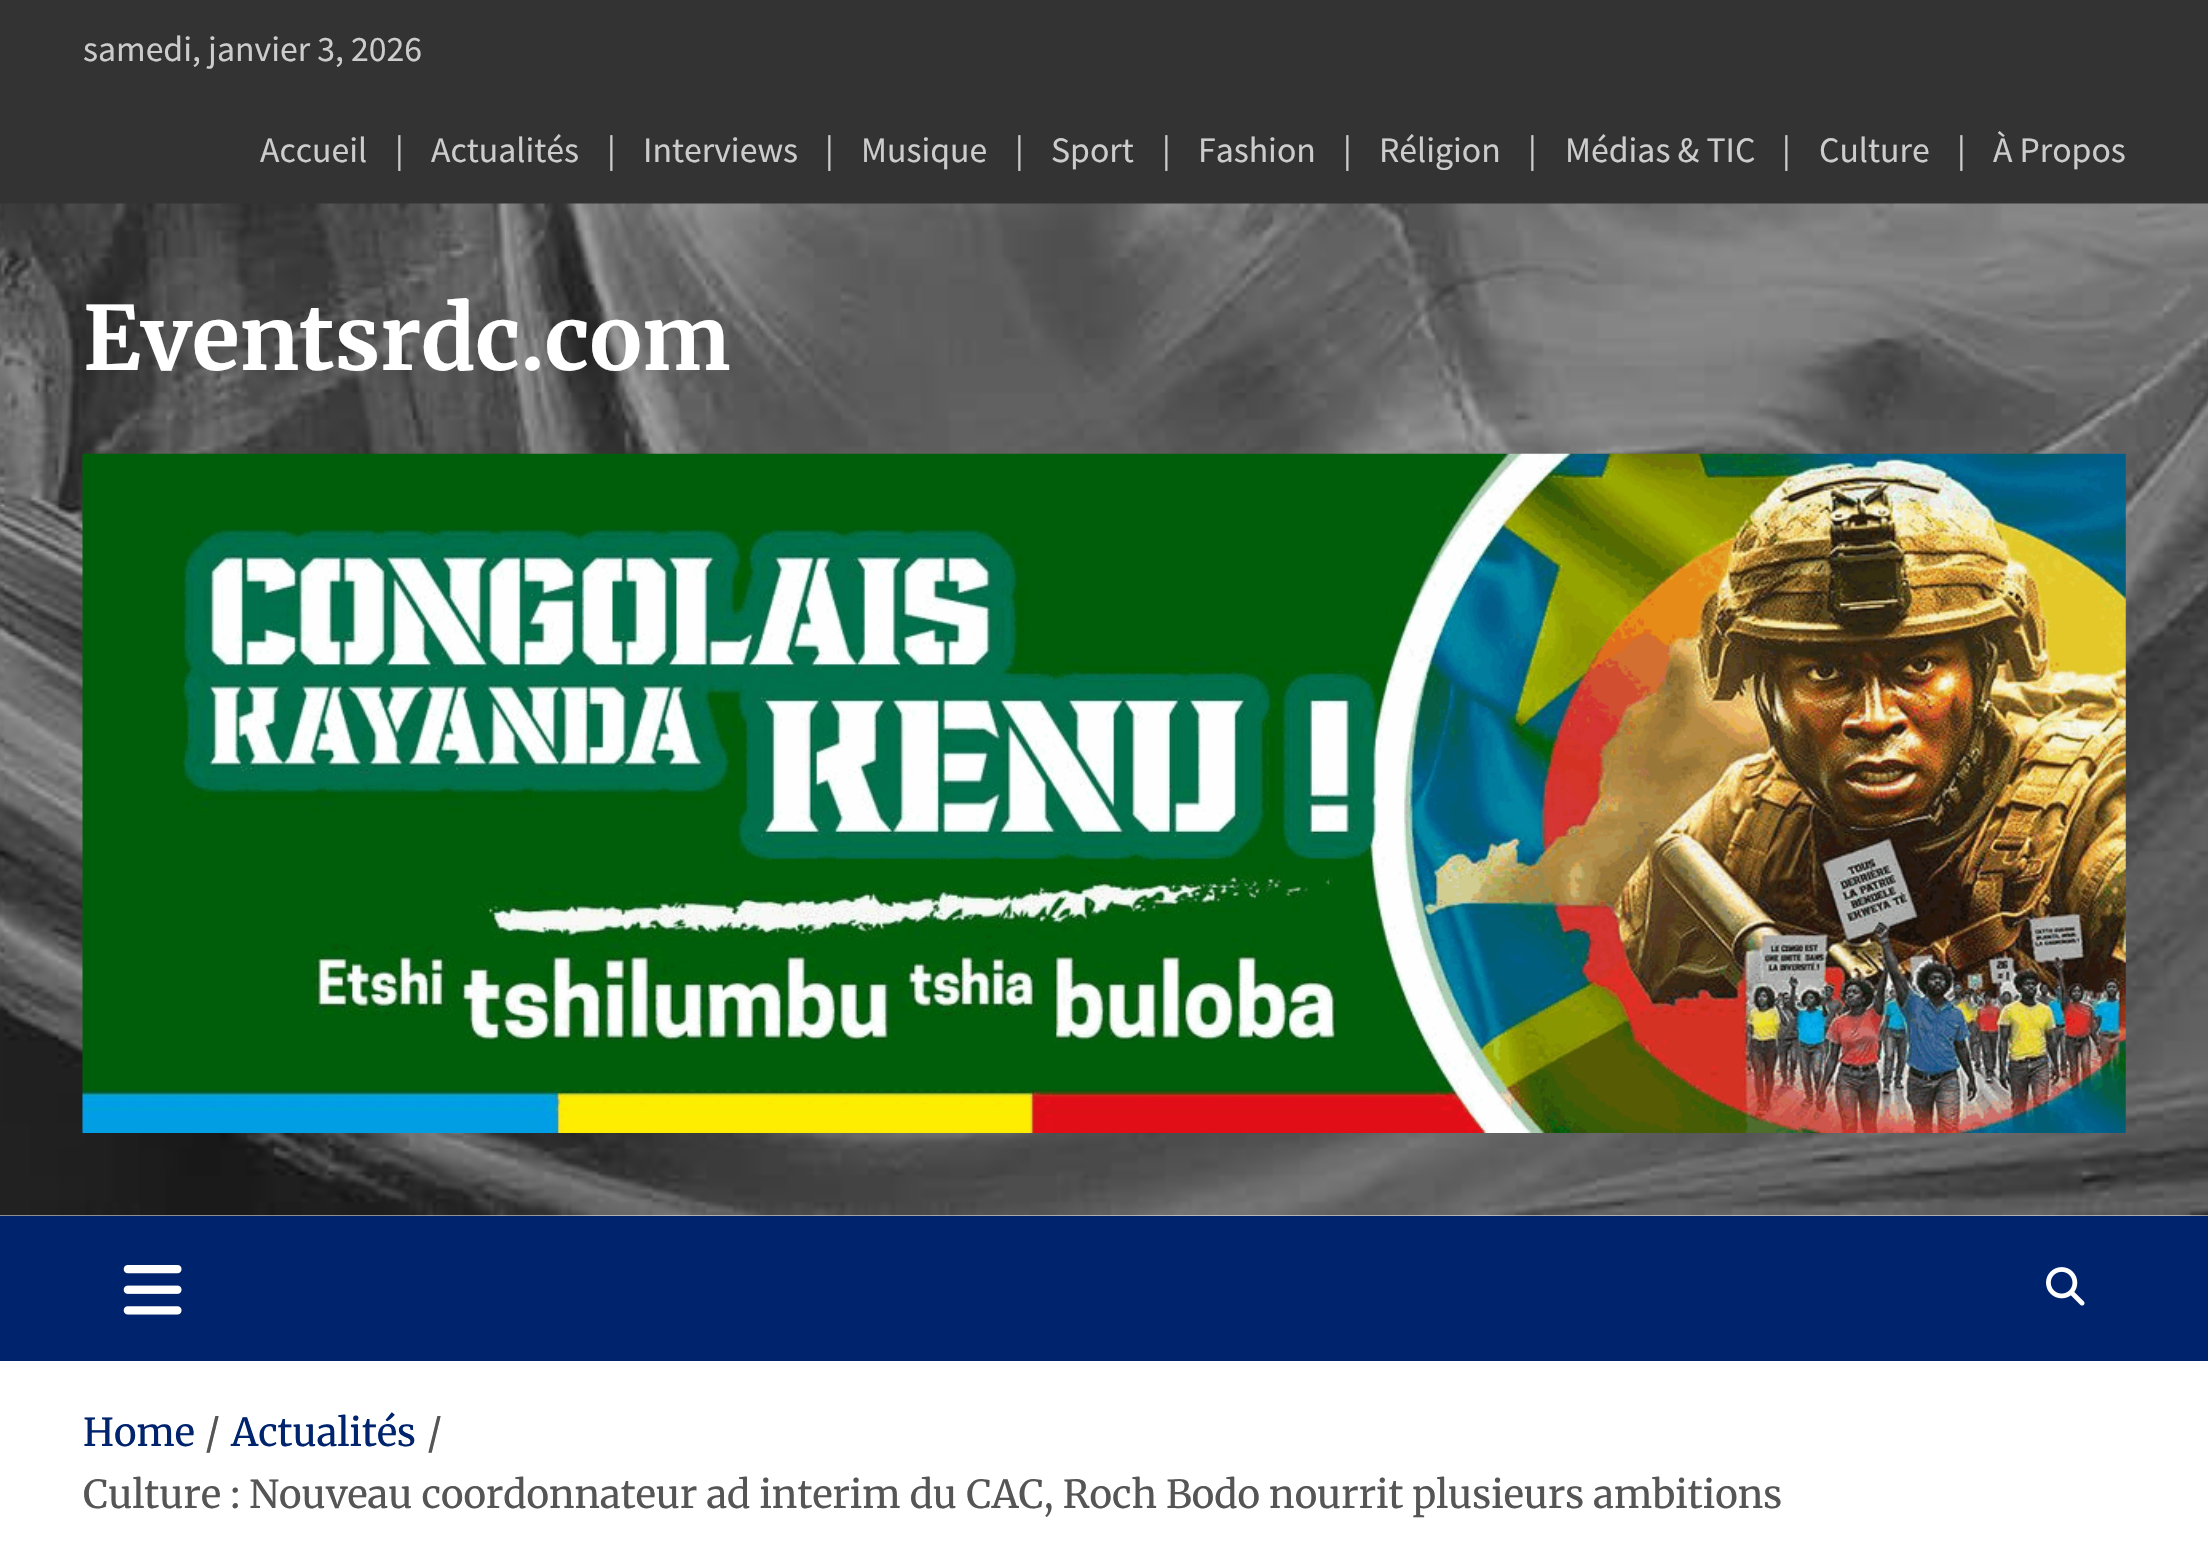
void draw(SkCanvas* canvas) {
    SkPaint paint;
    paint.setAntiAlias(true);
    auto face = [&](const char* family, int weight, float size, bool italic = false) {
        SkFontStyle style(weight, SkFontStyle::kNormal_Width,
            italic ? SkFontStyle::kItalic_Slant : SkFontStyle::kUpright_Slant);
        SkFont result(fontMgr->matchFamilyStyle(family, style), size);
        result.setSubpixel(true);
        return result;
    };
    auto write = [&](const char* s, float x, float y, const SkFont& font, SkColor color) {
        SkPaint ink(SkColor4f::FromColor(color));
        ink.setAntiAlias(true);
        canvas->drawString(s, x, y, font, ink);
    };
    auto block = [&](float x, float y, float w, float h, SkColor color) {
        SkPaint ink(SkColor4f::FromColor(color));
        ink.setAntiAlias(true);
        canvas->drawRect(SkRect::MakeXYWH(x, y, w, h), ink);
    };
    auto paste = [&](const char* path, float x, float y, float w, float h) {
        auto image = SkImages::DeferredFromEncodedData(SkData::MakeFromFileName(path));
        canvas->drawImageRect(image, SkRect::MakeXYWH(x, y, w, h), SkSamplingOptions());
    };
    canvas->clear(SK_ColorWHITE);
    block(0, 0, 2208, 204, SkColorSetRGB(51, 51, 51));
    auto kFont1 = face("Source Sans Pro", 400, 35.75f);
    write("samedi, janvier 3, 2026", 83, 61, kFont1, SkColorSetRGB(204, 204, 204));
    write("Accueil", 260, 162, kFont1, SkColorSetRGB(204, 204, 204));
    write("|", 395, 162, kFont1, SkColorSetRGB(204, 204, 204));
    write("Actualités", 431, 162, kFont1, SkColorSetRGB(204, 204, 204));
    write("|", 607, 162, kFont1, SkColorSetRGB(204, 204, 204));
    write("Interviews", 643, 162, kFont1, SkColorSetRGB(204, 204, 204));
    write("|", 825, 162, kFont1, SkColorSetRGB(204, 204, 204));
    write("Musique", 861, 162, kFont1, SkColorSetRGB(204, 204, 204));
    write("|", 1015, 162, kFont1, SkColorSetRGB(204, 204, 204));
    write("Sport", 1051, 162, kFont1, SkColorSetRGB(204, 204, 204));
    write("|", 1162, 162, kFont1, SkColorSetRGB(204, 204, 204));
    write("Fashion", 1198, 162, kFont1, SkColorSetRGB(204, 204, 204));
    write("|", 1343, 162, kFont1, SkColorSetRGB(204, 204, 204));
    write("Réligion", 1379, 162, kFont1, SkColorSetRGB(204, 204, 204));
    write("|", 1528, 162, kFont1, SkColorSetRGB(204, 204, 204));
    write("Médias & TIC", 1565, 162, kFont1, SkColorSetRGB(204, 204, 204));
    write("|", 1782, 162, kFont1, SkColorSetRGB(204, 204, 204));
    write("Culture", 1819, 162, kFont1, SkColorSetRGB(204, 204, 204));
    write("|", 1957, 162, kFont1, SkColorSetRGB(204, 204, 204));
    write("À Propos", 1993, 162, kFont1, SkColorSetRGB(204, 204, 204));
    paste("pic1.png", 0, 203, 2208, 1013);
    auto kFont2 = face("Merriweather", 700, 88);
    write("Eventsrdc.com", 83, 370, kFont2, SK_ColorWHITE);
    paste("pic2.png", 82, 453, 2044, 680);
    block(0, 1216, 2208, 145, SkColorSetRGB(0, 35, 110));
    paste("pic3.png", 123, 1265, 59, 50);
    paste("pic4.png", 2046, 1267, 39, 39);
    auto kFont3 = face("Merriweather", 400, 38.5f);
    write("Home", 83, 1446, kFont3, SkColorSetRGB(0, 35, 110));
    write("/", 205, 1446, kFont3, SkColorSetRGB(85, 85, 85));
    write("Actualités", 231, 1446, kFont3, SkColorSetRGB(0, 35, 110));
    write("/", 427, 1446, kFont3, SkColorSetRGB(85, 85, 85));
    write("Culture : Nouveau coordonnateur ad interim du CAC, Roch Bodo nourrit plusieurs ambitions", 83, 1508, kFont3, SkColorSetRGB(85, 85, 85));
}
